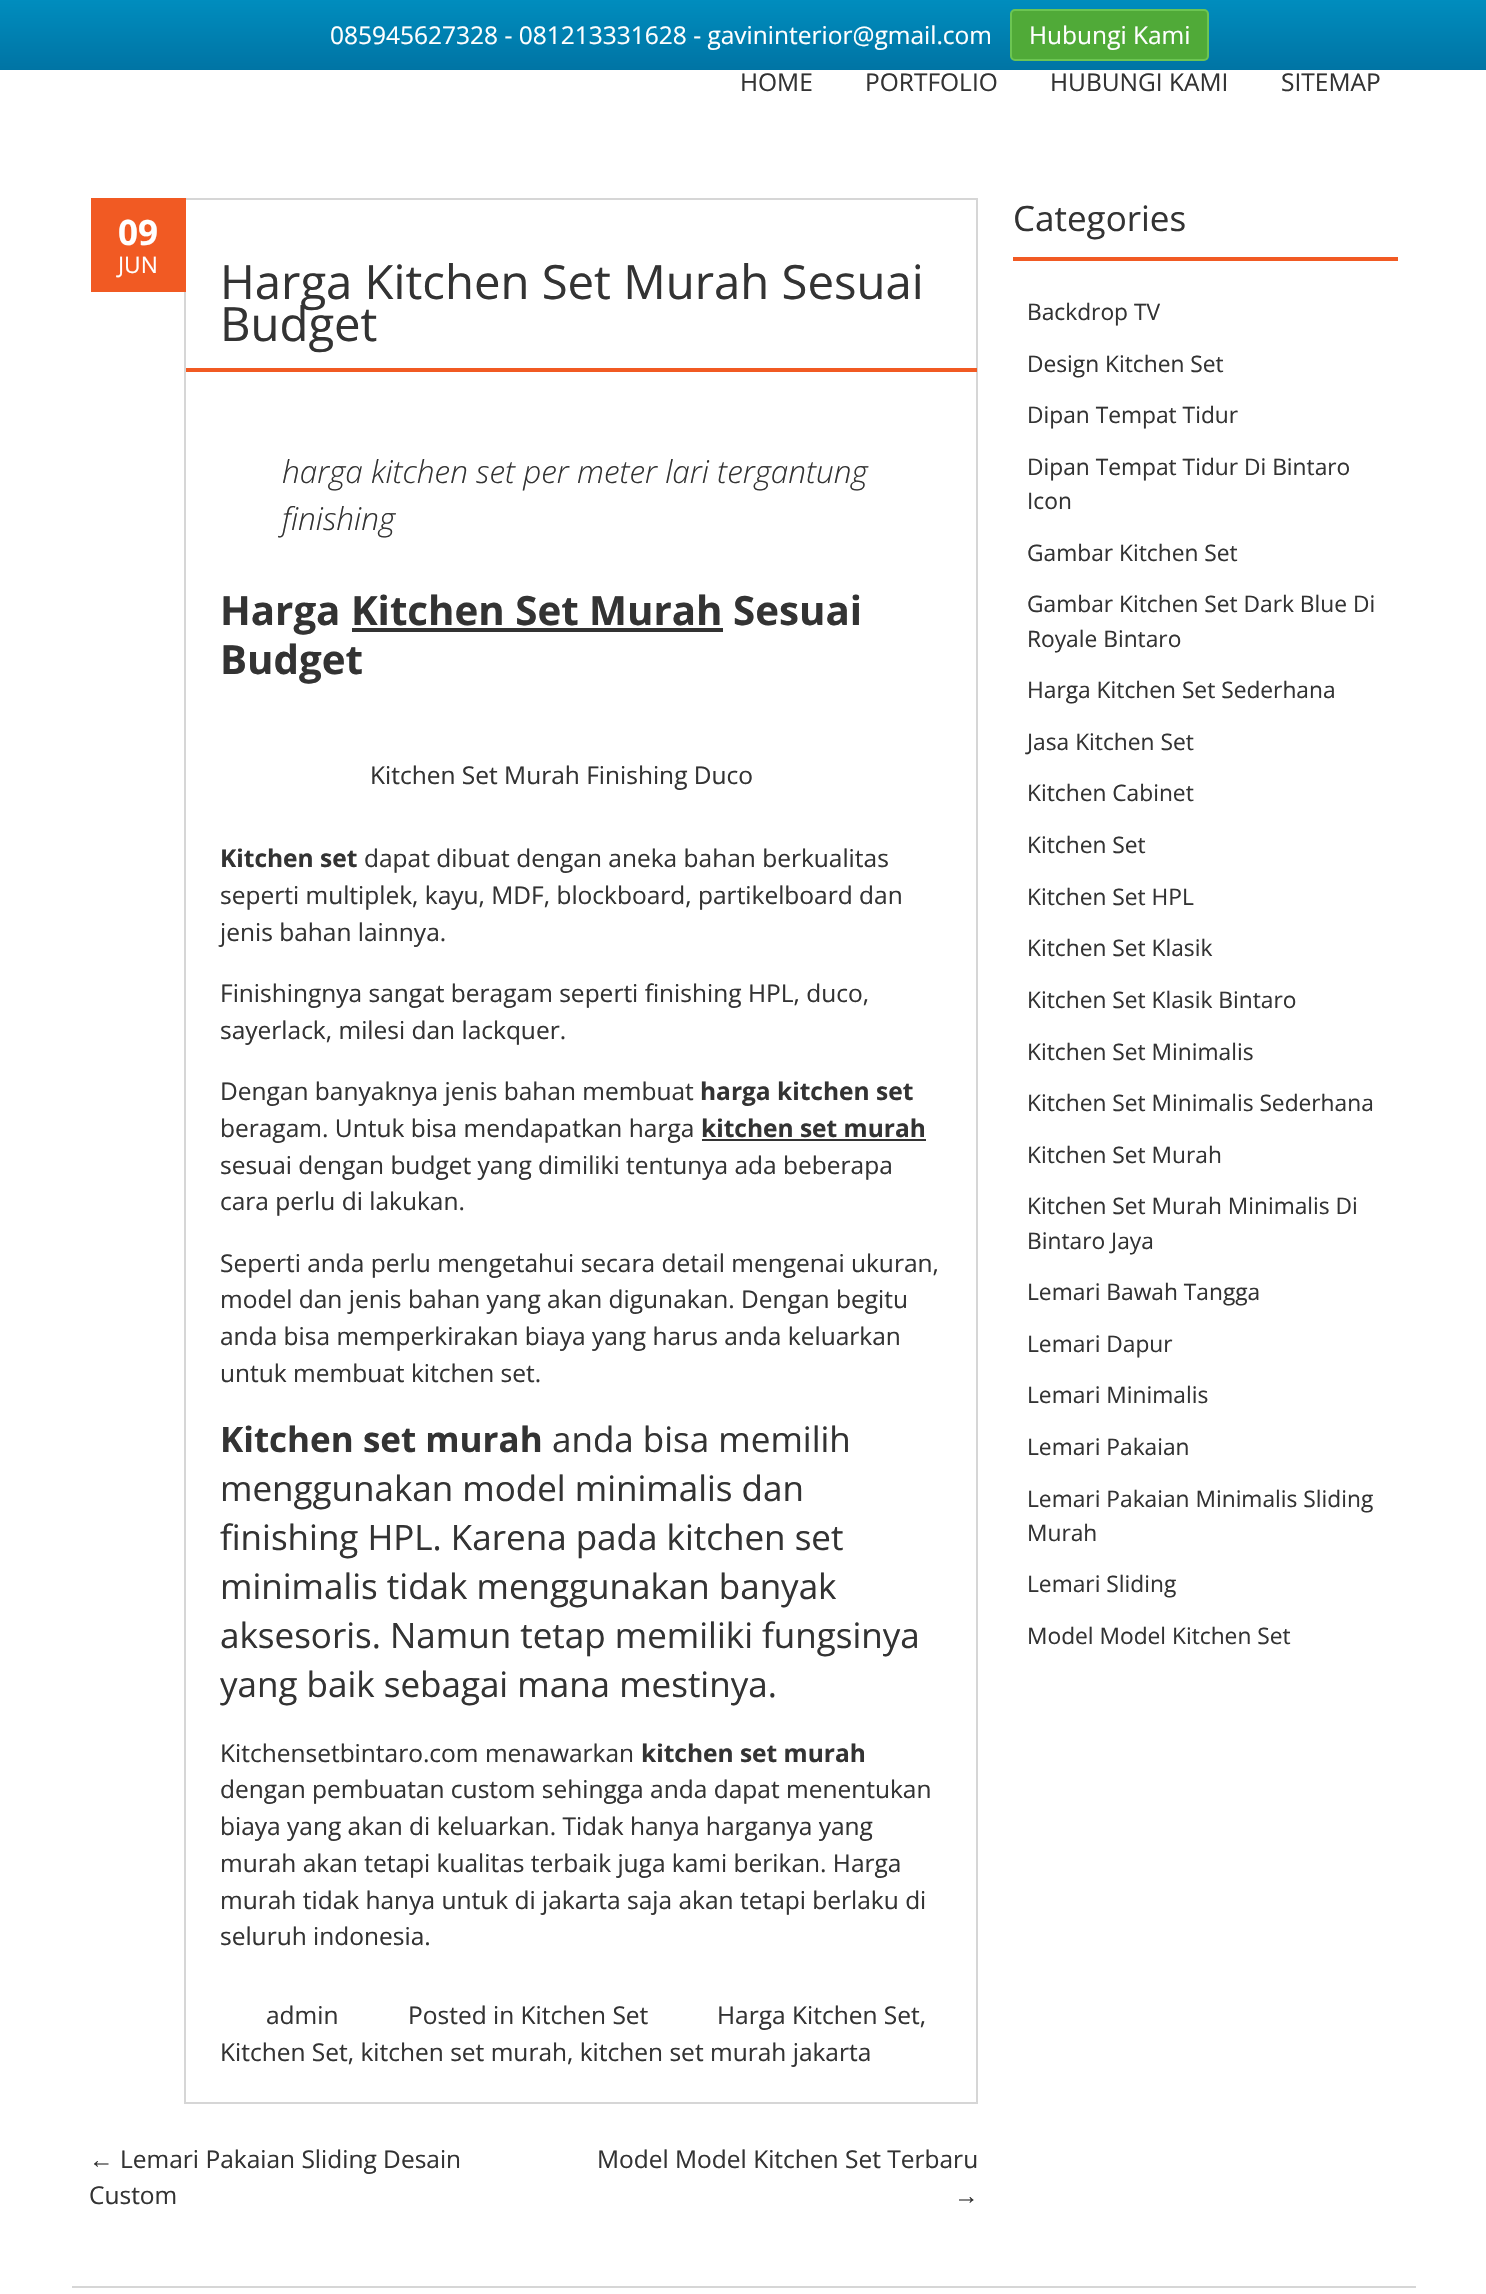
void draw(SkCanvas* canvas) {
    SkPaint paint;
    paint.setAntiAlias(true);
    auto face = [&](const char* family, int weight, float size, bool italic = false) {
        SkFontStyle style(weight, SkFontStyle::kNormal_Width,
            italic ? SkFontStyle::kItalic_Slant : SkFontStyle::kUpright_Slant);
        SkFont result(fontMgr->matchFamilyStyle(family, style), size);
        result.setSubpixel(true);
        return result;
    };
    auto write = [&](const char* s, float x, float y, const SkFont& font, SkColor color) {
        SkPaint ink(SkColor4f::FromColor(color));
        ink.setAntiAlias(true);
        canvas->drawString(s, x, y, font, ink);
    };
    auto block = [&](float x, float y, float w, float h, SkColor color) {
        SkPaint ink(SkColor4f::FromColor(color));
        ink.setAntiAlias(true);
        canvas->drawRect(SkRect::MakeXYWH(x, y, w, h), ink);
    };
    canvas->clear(SK_ColorWHITE);
    {
        const SkColor colors[] = {SkColorSetRGB(0, 141, 190), SkColorSetRGB(0, 116, 164)};
        const float stops[] = {0, 1};
        const SkPoint ends[] = {{744, 0}, {744, 70}};
        paint.setShader(SkGradientShader::MakeLinear(ends, colors, stops, 2, SkTileMode::kClamp));
        paint.setAlpha(255);
    }
    canvas->drawRect(SkRect::MakeXYWH(0, 0, 1486, 70), paint);
    auto kFont1 = face("Open Sans", 400, 24.5f);
    write("085945627328 - 081213331628 - gavininterior@gmail.com", 330, 44, kFont1, SK_ColorWHITE);
    paint.setShader(nullptr);
    paint.setColor(SkColorSetRGB(80, 170, 56));
    canvas->drawRoundRect(SkRect::MakeXYWH(1011, 10, 197, 50), 4, 4, paint);
    paint.setStyle(SkPaint::kStroke_Style);
    paint.setStrokeWidth(2);
    paint.setColor(SkColorSetRGB(108, 197, 82));
    canvas->drawRoundRect(SkRect::MakeXYWH(1011, 10, 197, 50), 4, 4, paint);
    write("Hubungi Kami", 1029, 44, kFont1, SK_ColorWHITE);
    write("HOME", 740, 91, kFont1, SkColorSetRGB(51, 51, 51));
    write("PORTFOLIO", 865, 91, kFont1, SkColorSetRGB(51, 51, 51));
    write("HUBUNGI KAMI", 1050, 91, kFont1, SkColorSetRGB(51, 51, 51));
    write("SITEMAP", 1281, 91, kFont1, SkColorSetRGB(51, 51, 51));
    paint.setColor(SkColorSetRGB(214, 214, 214));
    canvas->drawRect(SkRect::MakeXYWH(185, 199, 792, 1904), paint);
    block(91, 198, 95, 94, SkColorSetRGB(241, 90, 35));
    auto kFont2 = face("Open Sans", 700, 35);
    write("09", 118, 245, kFont2, SK_ColorWHITE);
    auto kFont3 = face("Open Sans", 400, 22.75f);
    write("JUN", 118, 273, kFont3, SK_ColorWHITE);
    block(186, 368, 791, 4, SkColorSetRGB(241, 90, 35));
    auto kFont4 = face("Open Sans", 400, 47.25f);
    write("Harga Kitchen Set Murah Sesuai", 220, 299, kFont4, SkColorSetRGB(51, 51, 51));
    write("Budget", 220, 341, kFont4, SkColorSetRGB(51, 51, 51));
    auto kFont5 = face("Open Sans", 300, 31.5f, true);
    write("harga kitchen set per meter lari tergantung", 282, 483, kFont5, SkColorSetRGB(51, 51, 51));
    write("finishing", 282, 530, kFont5, SkColorSetRGB(51, 51, 51));
    auto kFont6 = face("Open Sans", 700, 40.25f);
    write("Harga Kitchen Set Murah Sesuai", 220, 625, kFont6, SkColorSetRGB(51, 51, 51));
    block(352, 628, 371, 4, SkColorSetRGB(51, 51, 51));
    write("Budget", 220, 674, kFont6, SkColorSetRGB(51, 51, 51));
    write("Kitchen Set Murah Finishing Duco", 370, 784, kFont1, SkColorSetRGB(51, 51, 51));
    auto kFont7 = face("Open Sans", 700, 24.5f);
    write("Kitchen set", 220, 867, kFont7, SkColorSetRGB(51, 51, 51));
    write("dapat dibuat dengan aneka bahan berkualitas", 364, 867, kFont1, SkColorSetRGB(51, 51, 51));
    write("seperti multiplek, kayu, MDF, blockboard, partikelboard dan", 220, 904, kFont1, SkColorSetRGB(51, 51, 51));
    write("jenis bahan lainnya.", 220, 941, kFont1, SkColorSetRGB(51, 51, 51));
    write("Finishingnya sangat beragam seperti finishing HPL, duco,", 220, 1002, kFont1, SkColorSetRGB(51, 51, 51));
    write("sayerlack, milesi dan lackquer.", 220, 1039, kFont1, SkColorSetRGB(51, 51, 51));
    write("Dengan banyaknya jenis bahan membuat", 220, 1100, kFont1, SkColorSetRGB(51, 51, 51));
    write("harga kitchen set", 700, 1100, kFont7, SkColorSetRGB(51, 51, 51));
    write("beragam. Untuk bisa mendapatkan harga", 220, 1137, kFont1, SkColorSetRGB(51, 51, 51));
    write("kitchen set murah", 701, 1137, kFont7, SkColorSetRGB(51, 51, 51));
    block(702, 1139, 224, 2, SkColorSetRGB(51, 51, 51));
    write("sesuai dengan budget yang dimiliki tentunya ada beberapa", 220, 1174, kFont1, SkColorSetRGB(51, 51, 51));
    write("cara perlu di lakukan.", 220, 1210, kFont1, SkColorSetRGB(51, 51, 51));
    write("Seperti anda perlu mengetahui secara detail mengenai ukuran,", 220, 1272, kFont1, SkColorSetRGB(51, 51, 51));
    write("model dan jenis bahan yang akan digunakan. Dengan begitu", 220, 1308, kFont1, SkColorSetRGB(51, 51, 51));
    write("anda bisa memperkirakan biaya yang harus anda keluarkan", 220, 1345, kFont1, SkColorSetRGB(51, 51, 51));
    write("untuk membuat kitchen set.", 220, 1382, kFont1, SkColorSetRGB(51, 51, 51));
    write("Kitchen set murah", 220, 1452, kFont2, SkColorSetRGB(51, 51, 51));
    auto kFont8 = face("Open Sans", 400, 35);
    write("anda bisa memilih", 552, 1452, kFont8, SkColorSetRGB(51, 51, 51));
    write("menggunakan model minimalis dan", 220, 1501, kFont8, SkColorSetRGB(51, 51, 51));
    write("finishing HPL. Karena pada kitchen set", 220, 1550, kFont8, SkColorSetRGB(51, 51, 51));
    write("minimalis tidak menggunakan banyak", 220, 1599, kFont8, SkColorSetRGB(51, 51, 51));
    write("aksesoris. Namun tetap memiliki fungsinya", 220, 1648, kFont8, SkColorSetRGB(51, 51, 51));
    write("yang baik sebagai mana mestinya.", 220, 1697, kFont8, SkColorSetRGB(51, 51, 51));
    write("Kitchensetbintaro.com menawarkan", 220, 1762, kFont1, SkColorSetRGB(51, 51, 51));
    write("kitchen set murah", 641, 1762, kFont7, SkColorSetRGB(51, 51, 51));
    write("dengan pembuatan custom sehingga anda dapat menentukan", 220, 1798, kFont1, SkColorSetRGB(51, 51, 51));
    write("biaya yang akan di keluarkan. Tidak hanya harganya yang", 220, 1835, kFont1, SkColorSetRGB(51, 51, 51));
    write("murah akan tetapi kualitas terbaik juga kami berikan. Harga", 220, 1872, kFont1, SkColorSetRGB(51, 51, 51));
    write("murah tidak hanya untuk di jakarta saja akan tetapi berlaku di", 220, 1909, kFont1, SkColorSetRGB(51, 51, 51));
    write("seluruh indonesia.", 220, 1945, kFont1, SkColorSetRGB(51, 51, 51));
    write("admin", 266, 2024, kFont1, SkColorSetRGB(51, 51, 51));
    write("Posted in Kitchen Set", 408, 2024, kFont1, SkColorSetRGB(51, 51, 51));
    write("Harga Kitchen Set,", 717, 2024, kFont1, SkColorSetRGB(51, 51, 51));
    write("Kitchen Set, kitchen set murah, kitchen set murah jakarta", 220, 2061, kFont1, SkColorSetRGB(51, 51, 51));
    auto kFont9 = face("Liberation Sans", 400, 24.5f);
    write("←", 89, 2168, kFont9, SkColorSetRGB(51, 51, 51));
    write("Lemari Pakaian Sliding Desain", 120, 2168, kFont1, SkColorSetRGB(51, 51, 51));
    write("Custom", 89, 2204, kFont1, SkColorSetRGB(51, 51, 51));
    write("Model Model Kitchen Set Terbaru", 597, 2168, kFont1, SkColorSetRGB(51, 51, 51));
    write("→", 954, 2204, kFont9, SkColorSetRGB(51, 51, 51));
    block(1013, 257, 385, 4, SkColorSetRGB(241, 90, 35));
    write("Categories", 1013, 231, kFont8, SkColorSetRGB(51, 51, 51));
    write("Backdrop TV", 1027, 320, kFont3, SkColorSetRGB(51, 51, 51));
    write("Design Kitchen Set", 1027, 372, kFont3, SkColorSetRGB(51, 51, 51));
    write("Dipan Tempat Tidur", 1027, 423, kFont3, SkColorSetRGB(51, 51, 51));
    write("Dipan Tempat Tidur Di Bintaro", 1027, 475, kFont3, SkColorSetRGB(51, 51, 51));
    write("Icon", 1027, 509, kFont3, SkColorSetRGB(51, 51, 51));
    write("Gambar Kitchen Set", 1027, 561, kFont3, SkColorSetRGB(51, 51, 51));
    write("Gambar Kitchen Set Dark Blue Di", 1027, 612, kFont3, SkColorSetRGB(51, 51, 51));
    write("Royale Bintaro", 1027, 647, kFont3, SkColorSetRGB(51, 51, 51));
    write("Harga Kitchen Set Sederhana", 1027, 698, kFont3, SkColorSetRGB(51, 51, 51));
    write("Jasa Kitchen Set", 1027, 750, kFont3, SkColorSetRGB(51, 51, 51));
    write("Kitchen Cabinet", 1027, 801, kFont3, SkColorSetRGB(51, 51, 51));
    write("Kitchen Set", 1027, 853, kFont3, SkColorSetRGB(51, 51, 51));
    write("Kitchen Set HPL", 1027, 905, kFont3, SkColorSetRGB(51, 51, 51));
    write("Kitchen Set Klasik", 1027, 956, kFont3, SkColorSetRGB(51, 51, 51));
    write("Kitchen Set Klasik Bintaro", 1027, 1008, kFont3, SkColorSetRGB(51, 51, 51));
    write("Kitchen Set Minimalis", 1027, 1060, kFont3, SkColorSetRGB(51, 51, 51));
    write("Kitchen Set Minimalis Sederhana", 1027, 1111, kFont3, SkColorSetRGB(51, 51, 51));
    write("Kitchen Set Murah", 1027, 1163, kFont3, SkColorSetRGB(51, 51, 51));
    write("Kitchen Set Murah Minimalis Di", 1027, 1214, kFont3, SkColorSetRGB(51, 51, 51));
    write("Bintaro Jaya", 1027, 1249, kFont3, SkColorSetRGB(51, 51, 51));
    write("Lemari Bawah Tangga", 1027, 1300, kFont3, SkColorSetRGB(51, 51, 51));
    write("Lemari Dapur", 1027, 1352, kFont3, SkColorSetRGB(51, 51, 51));
    write("Lemari Minimalis", 1027, 1403, kFont3, SkColorSetRGB(51, 51, 51));
    write("Lemari Pakaian", 1027, 1455, kFont3, SkColorSetRGB(51, 51, 51));
    write("Lemari Pakaian Minimalis Sliding", 1027, 1507, kFont3, SkColorSetRGB(51, 51, 51));
    write("Murah", 1027, 1541, kFont3, SkColorSetRGB(51, 51, 51));
    write("Lemari Sliding", 1027, 1592, kFont3, SkColorSetRGB(51, 51, 51));
    write("Model Model Kitchen Set", 1027, 1644, kFont3, SkColorSetRGB(51, 51, 51));
    block(72, 2286, 1344, 2, SkColorSetRGB(214, 214, 214));
}
